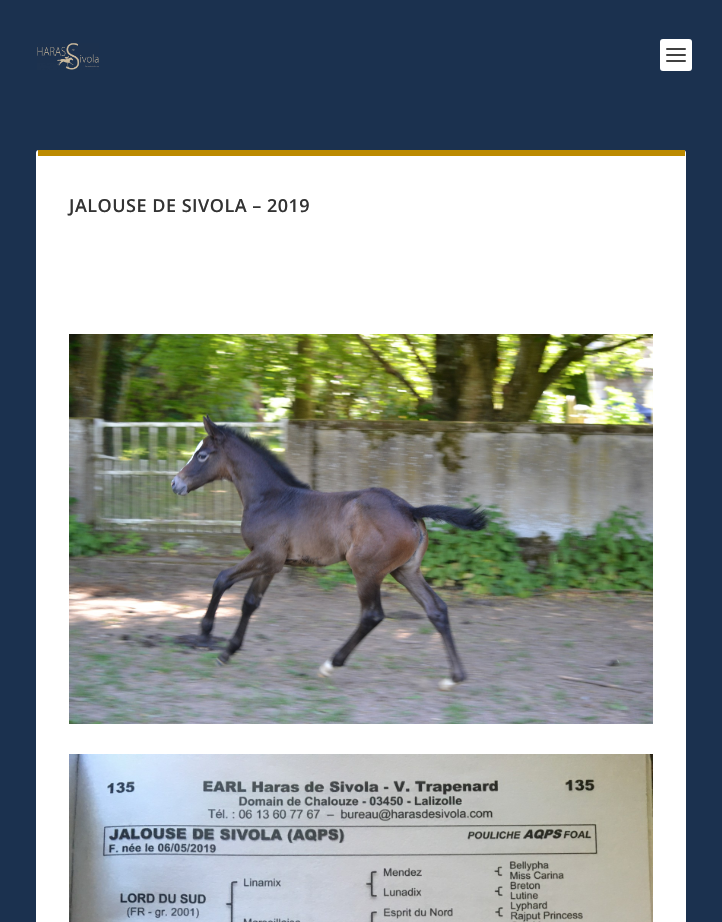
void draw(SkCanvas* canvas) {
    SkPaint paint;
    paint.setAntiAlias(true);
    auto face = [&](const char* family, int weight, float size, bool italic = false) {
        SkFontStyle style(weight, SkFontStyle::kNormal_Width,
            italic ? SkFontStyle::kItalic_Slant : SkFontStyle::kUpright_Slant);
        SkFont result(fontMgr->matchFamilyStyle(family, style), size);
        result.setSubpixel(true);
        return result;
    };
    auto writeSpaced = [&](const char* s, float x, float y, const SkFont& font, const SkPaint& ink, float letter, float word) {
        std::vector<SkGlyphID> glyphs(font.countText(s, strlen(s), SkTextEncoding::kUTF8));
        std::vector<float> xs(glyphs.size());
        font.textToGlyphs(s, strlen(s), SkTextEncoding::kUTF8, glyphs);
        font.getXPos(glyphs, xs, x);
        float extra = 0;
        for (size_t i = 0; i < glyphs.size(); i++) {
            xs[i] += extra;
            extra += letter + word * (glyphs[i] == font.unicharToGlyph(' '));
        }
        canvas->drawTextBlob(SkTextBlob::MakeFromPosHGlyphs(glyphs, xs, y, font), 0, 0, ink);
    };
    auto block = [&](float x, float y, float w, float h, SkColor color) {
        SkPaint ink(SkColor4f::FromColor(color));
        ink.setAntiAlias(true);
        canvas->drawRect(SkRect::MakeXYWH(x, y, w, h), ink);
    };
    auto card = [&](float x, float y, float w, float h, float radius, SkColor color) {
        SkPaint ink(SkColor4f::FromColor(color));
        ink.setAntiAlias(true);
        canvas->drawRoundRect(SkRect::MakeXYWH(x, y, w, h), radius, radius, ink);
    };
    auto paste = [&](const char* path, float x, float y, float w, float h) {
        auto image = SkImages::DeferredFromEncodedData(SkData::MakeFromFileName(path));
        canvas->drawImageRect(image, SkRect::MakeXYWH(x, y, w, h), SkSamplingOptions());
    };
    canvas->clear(SkColorSetRGB(27, 49, 79));
    paste("pic1.png", 37, 43, 62, 27);
    card(660, 39, 32, 32, 3, SK_ColorWHITE);
    card(666, 48, 20, 2, 1, SkColorSetRGB(64, 64, 64));
    card(666, 54, 20, 2, 1, SkColorSetRGB(64, 64, 64));
    card(666, 60, 20, 2, 1, SkColorSetRGB(64, 64, 64));
    card(36, 150, 650, 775, 3, SK_ColorWHITE);
    block(38, 150, 647, 6, SkColorSetRGB(188, 138, 0));
    auto kFont1 = face("Open Sans", 600, 18);
    paint.setColor(SkColorSetRGB(51, 51, 51));
    writeSpaced("JALOUSE DE SIVOLA – 2019", 69, 212, kFont1, paint, 0.5f, 0);
    paste("pic2.png", 69, 334, 584, 390);
    paste("pic3.png", 69, 754, 584, 168);
}
